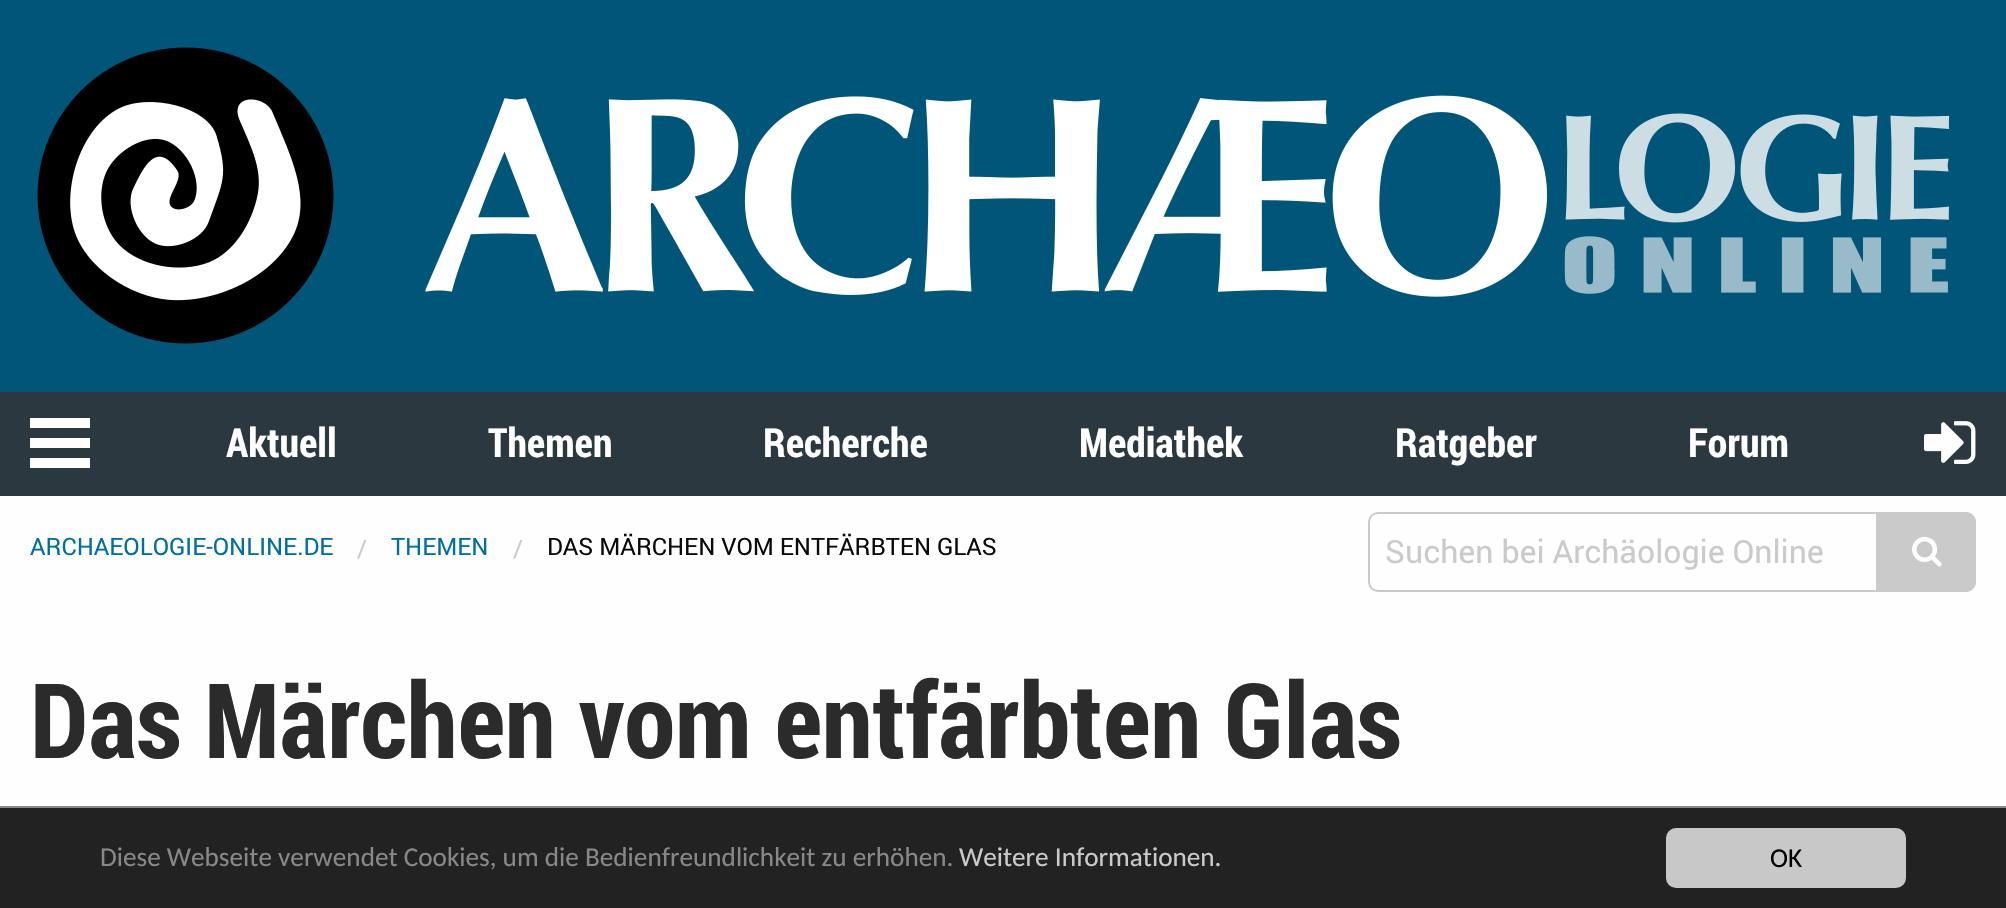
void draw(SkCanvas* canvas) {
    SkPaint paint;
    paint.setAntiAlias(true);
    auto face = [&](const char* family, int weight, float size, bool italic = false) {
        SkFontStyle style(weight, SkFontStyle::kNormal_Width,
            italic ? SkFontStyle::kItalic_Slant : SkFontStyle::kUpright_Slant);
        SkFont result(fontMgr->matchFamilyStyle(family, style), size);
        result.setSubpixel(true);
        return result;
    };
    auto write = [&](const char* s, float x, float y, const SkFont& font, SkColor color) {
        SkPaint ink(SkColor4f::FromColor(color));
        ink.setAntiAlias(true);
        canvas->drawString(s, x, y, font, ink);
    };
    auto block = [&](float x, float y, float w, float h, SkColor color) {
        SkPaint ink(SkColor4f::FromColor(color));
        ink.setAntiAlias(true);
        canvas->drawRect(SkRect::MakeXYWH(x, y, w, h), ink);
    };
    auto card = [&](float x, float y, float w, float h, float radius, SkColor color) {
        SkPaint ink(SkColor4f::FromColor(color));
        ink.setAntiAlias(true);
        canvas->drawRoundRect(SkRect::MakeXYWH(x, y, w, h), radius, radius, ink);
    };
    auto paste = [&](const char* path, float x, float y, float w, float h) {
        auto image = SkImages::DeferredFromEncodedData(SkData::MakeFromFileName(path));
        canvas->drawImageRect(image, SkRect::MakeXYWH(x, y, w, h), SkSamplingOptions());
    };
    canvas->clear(SkColorSetRGB(44, 56, 64));
    block(0, 0, 2006, 392, SkColorSetRGB(0, 85, 120));
    paste("pic1.png", 37, 47, 1913, 297);
    block(30, 458, 60, 10, SkColorSetRGB(254, 254, 254));
    block(30, 438, 60, 10, SkColorSetRGB(254, 254, 254));
    block(30, 418, 60, 10, SkColorSetRGB(254, 254, 254));
    auto kFont1 = face("Roboto Condensed", 700, 40);
    write("Aktuell", 226, 457, kFont1, SkColorSetRGB(254, 254, 254));
    write("Themen", 488, 457, kFont1, SkColorSetRGB(254, 254, 254));
    write("Recherche", 763, 457, kFont1, SkColorSetRGB(254, 254, 254));
    write("Mediathek", 1079, 457, kFont1, SkColorSetRGB(254, 254, 254));
    write("Ratgeber", 1395, 457, kFont1, SkColorSetRGB(254, 254, 254));
    write("Forum", 1688, 457, kFont1, SkColorSetRGB(254, 254, 254));
    paste("pic2.png", 1924, 421, 52, 43);
    block(0, 496, 2006, 310, SkColorSetRGB(254, 254, 254));
    auto kFont2 = face("Roboto", 400, 24);
    write("ARCHAEOLOGIE-ONLINE.DE", 30, 555, kFont2, SkColorSetRGB(0, 111, 158));
    write("/", 357, 557, kFont2, SkColorSetRGB(202, 202, 202));
    write("THEMEN", 391, 555, kFont2, SkColorSetRGB(0, 111, 158));
    write("/", 513, 557, kFont2, SkColorSetRGB(202, 202, 202));
    write("DAS MÄRCHEN VOM ENTFÄRBTEN GLAS", 547, 555, kFont2, SkColorSetRGB(10, 10, 10));
    paint.setStyle(SkPaint::kStroke_Style);
    paint.setStrokeWidth(2);
    paint.setColor(SkColorSetRGB(202, 202, 202));
    canvas->drawPath(SkPathBuilder().moveTo(1378, 513).lineTo(1877, 513).lineTo(1877, 591).lineTo(1378, 591).cubicTo(1373, 591, 1369, 587, 1369, 582).lineTo(1369, 522).cubicTo(1369, 517, 1373, 513, 1378, 513).close().detach(), paint);
    auto kFont3 = face("Roboto", 400, 32);
    write("Suchen bei Archäologie Online", 1385, 563, kFont3, SkColorSetRGB(202, 202, 202));
    paint.setStyle(SkPaint::kFill_Style);
    canvas->drawPath(SkPathBuilder().moveTo(1878, 512).lineTo(1966, 512).cubicTo(1971.5f, 512, 1976, 516.5f, 1976, 522).lineTo(1976, 582).cubicTo(1976, 587.5f, 1971.5f, 592, 1966, 592).lineTo(1878, 592).close().detach(), paint);
    paste("pic3.png", 1912, 536, 30, 31);
    auto kFont4 = face("Roboto Condensed", 700, 104);
    write("Das Märchen vom entfärbten Glas", 30, 758, kFont4, SkColorSetRGB(43, 43, 43));
    block(0, 808, 2006, 100, SkColorSetRGB(34, 34, 34));
    block(0, 806, 2006, 2, SkColorSetRGB(136, 136, 136));
    auto kFont5 = face("Carlito", 400, 27.2f);
    write("Diese Webseite verwendet Cookies, um die Bedienfreundlichkeit zu erhöhen.", 100, 866, kFont5, SkColorSetRGB(136, 136, 136));
    write("Weitere Informationen.", 959, 866, kFont5, SkColorSetRGB(202, 202, 202));
    card(1666, 828, 240, 60, 10, SkColorSetRGB(200, 200, 200));
    write("OK", 1770, 867, kFont5, SK_ColorBLACK);
}
